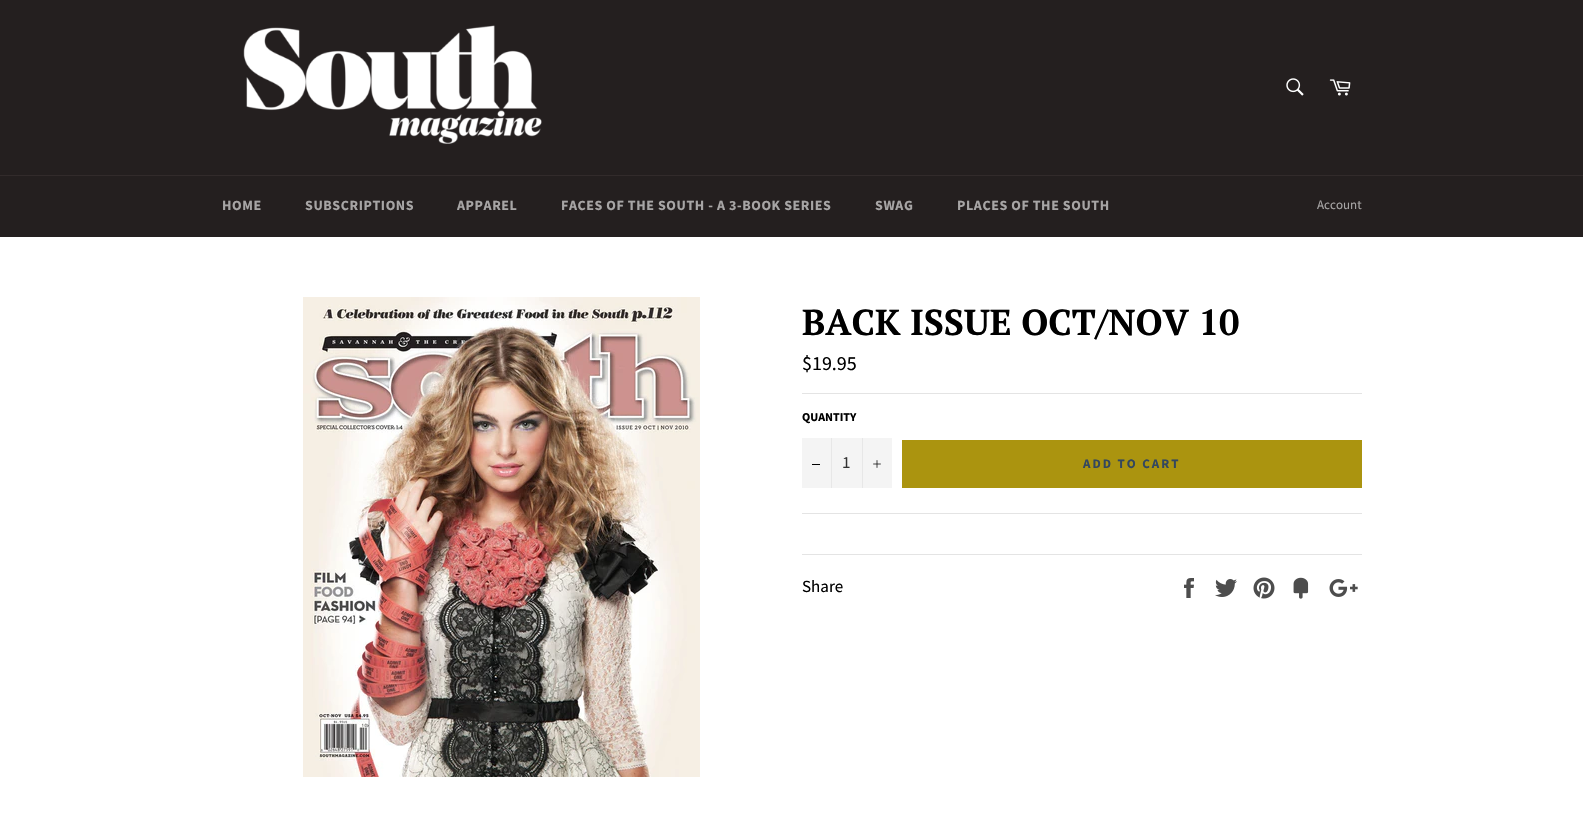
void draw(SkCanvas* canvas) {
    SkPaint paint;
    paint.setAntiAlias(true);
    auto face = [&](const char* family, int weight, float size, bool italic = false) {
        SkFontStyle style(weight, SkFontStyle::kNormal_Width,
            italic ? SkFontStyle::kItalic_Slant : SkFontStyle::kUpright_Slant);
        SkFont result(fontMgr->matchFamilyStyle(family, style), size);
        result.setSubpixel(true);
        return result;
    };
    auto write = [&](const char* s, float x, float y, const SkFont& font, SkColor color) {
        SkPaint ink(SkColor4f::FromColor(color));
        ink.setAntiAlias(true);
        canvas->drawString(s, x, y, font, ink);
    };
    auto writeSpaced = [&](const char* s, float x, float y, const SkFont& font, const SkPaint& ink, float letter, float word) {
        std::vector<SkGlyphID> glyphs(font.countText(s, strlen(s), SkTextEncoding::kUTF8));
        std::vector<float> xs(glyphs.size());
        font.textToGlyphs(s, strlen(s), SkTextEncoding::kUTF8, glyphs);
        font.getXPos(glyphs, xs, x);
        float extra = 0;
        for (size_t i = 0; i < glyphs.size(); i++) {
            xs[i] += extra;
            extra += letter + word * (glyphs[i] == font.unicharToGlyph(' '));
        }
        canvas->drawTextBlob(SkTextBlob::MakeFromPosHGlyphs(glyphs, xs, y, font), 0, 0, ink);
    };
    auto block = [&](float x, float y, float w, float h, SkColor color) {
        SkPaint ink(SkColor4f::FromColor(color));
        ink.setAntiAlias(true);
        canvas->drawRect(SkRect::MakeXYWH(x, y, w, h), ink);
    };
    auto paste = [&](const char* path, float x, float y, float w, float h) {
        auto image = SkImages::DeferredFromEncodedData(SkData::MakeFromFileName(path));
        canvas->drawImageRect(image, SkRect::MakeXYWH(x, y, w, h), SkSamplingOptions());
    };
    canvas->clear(SK_ColorWHITE);
    block(0, 0, 1583, 237, SkColorSetRGB(36, 31, 31));
    paste("pic1.png", 243, 25, 299, 119);
    paste("pic2.png", 1286, 78, 18, 18);
    paste("pic3.png", 1329, 79, 22, 17);
    block(0, 175, 1583, 1, SkColorSetRGB(50, 43, 43));
    auto kFont1 = face("Source Sans Pro", 700, 14);
    paint.setColor(SkColorSetRGB(167, 165, 165));
    writeSpaced("HOME", 222, 210, kFont1, paint, 0.6f, 0);
    writeSpaced("SUBSCRIPTIONS", 305, 210, kFont1, paint, 0.6f, 0);
    writeSpaced("APPAREL", 457, 210, kFont1, paint, 0.6f, 0);
    writeSpaced("FACES OF THE SOUTH - A 3-BOOK SERIES", 561, 210, kFont1, paint, 0.6f, 0);
    writeSpaced("SWAG", 875, 210, kFont1, paint, 0.6f, 0);
    writeSpaced("PLACES OF THE SOUTH", 957, 210, kFont1, paint, 0.6f, 0);
    auto kFont2 = face("Source Sans Pro", 400, 13);
    write("Account", 1317, 209, kFont2, SkColorSetRGB(167, 165, 165));
    paste("pic4.png", 303, 297, 397, 480);
    auto kFont3 = face("PT Serif", 700, 36);
    write("BACK ISSUE OCT/NOV 10", 802, 335, kFont3, SK_ColorBLACK);
    auto kFont4 = face("Source Sans Pro", 400, 20);
    write("$19.95", 802, 370, kFont4, SK_ColorBLACK);
    block(802, 393, 560, 1, SkColorSetRGB(228, 228, 228));
    auto kFont5 = face("Source Sans Pro", 700, 12);
    write("QUANTITY", 802, 421, kFont5, SK_ColorBLACK);
    block(802, 438, 90, 50, SkColorSetRGB(244, 244, 244));
    block(831, 438, 1, 50, SkColorSetRGB(231, 231, 231));
    block(812, 464, 8, 1, SK_ColorBLACK);
    auto kFont6 = face("Source Sans Pro", 400, 17);
    write("1", 842, 468, kFont6, SkColorSetRGB(51, 51, 51));
    block(862, 438, 1, 50, SkColorSetRGB(231, 231, 231));
    paste("pic5.png", 873, 460, 8, 8);
    block(902, 440, 460, 48, SkColorSetRGB(171, 148, 15));
    auto kFont7 = face("Source Sans Pro", 700, 13);
    paint.setColor(SkColorSetRGB(51, 71, 94));
    writeSpaced("ADD TO CART", 1083, 468, kFont7, paint, 2, 0);
    block(802, 513, 560, 1, SkColorSetRGB(228, 228, 228));
    block(802, 554, 560, 1, SkColorSetRGB(228, 228, 228));
    write("Share", 802, 592, kFont6, SK_ColorBLACK);
    paste("pic6.png", 1184, 578, 10, 20);
    paste("pic7.png", 1215, 579, 22, 18);
    paste("pic8.png", 1253, 577, 22, 22);
    paste("pic9.png", 1293, 577, 16, 22);
    paste("pic10.png", 1329, 579, 29, 18);
}
